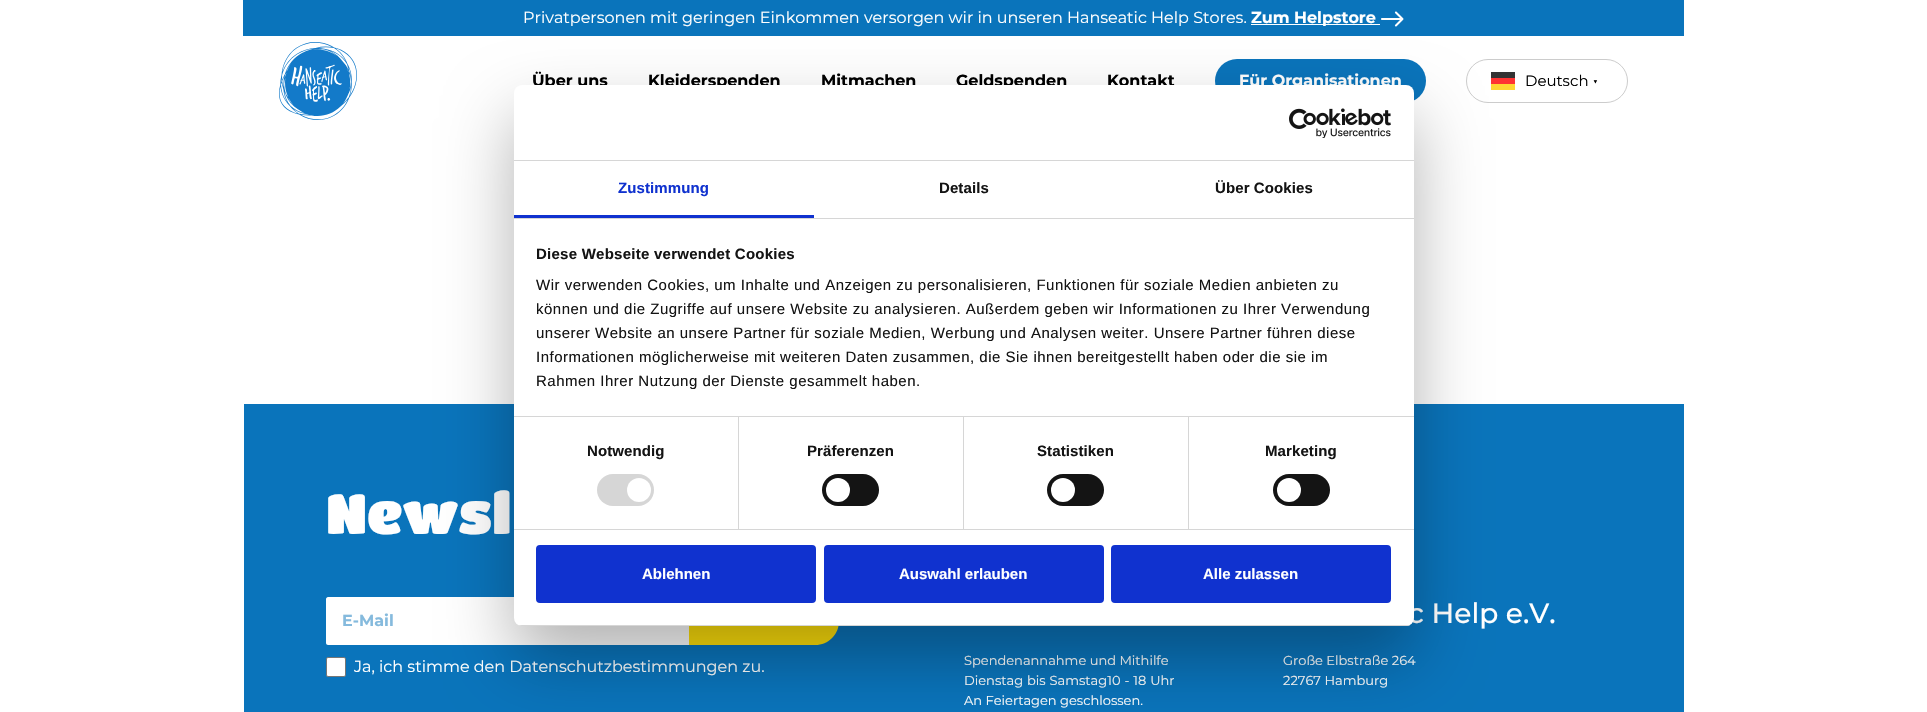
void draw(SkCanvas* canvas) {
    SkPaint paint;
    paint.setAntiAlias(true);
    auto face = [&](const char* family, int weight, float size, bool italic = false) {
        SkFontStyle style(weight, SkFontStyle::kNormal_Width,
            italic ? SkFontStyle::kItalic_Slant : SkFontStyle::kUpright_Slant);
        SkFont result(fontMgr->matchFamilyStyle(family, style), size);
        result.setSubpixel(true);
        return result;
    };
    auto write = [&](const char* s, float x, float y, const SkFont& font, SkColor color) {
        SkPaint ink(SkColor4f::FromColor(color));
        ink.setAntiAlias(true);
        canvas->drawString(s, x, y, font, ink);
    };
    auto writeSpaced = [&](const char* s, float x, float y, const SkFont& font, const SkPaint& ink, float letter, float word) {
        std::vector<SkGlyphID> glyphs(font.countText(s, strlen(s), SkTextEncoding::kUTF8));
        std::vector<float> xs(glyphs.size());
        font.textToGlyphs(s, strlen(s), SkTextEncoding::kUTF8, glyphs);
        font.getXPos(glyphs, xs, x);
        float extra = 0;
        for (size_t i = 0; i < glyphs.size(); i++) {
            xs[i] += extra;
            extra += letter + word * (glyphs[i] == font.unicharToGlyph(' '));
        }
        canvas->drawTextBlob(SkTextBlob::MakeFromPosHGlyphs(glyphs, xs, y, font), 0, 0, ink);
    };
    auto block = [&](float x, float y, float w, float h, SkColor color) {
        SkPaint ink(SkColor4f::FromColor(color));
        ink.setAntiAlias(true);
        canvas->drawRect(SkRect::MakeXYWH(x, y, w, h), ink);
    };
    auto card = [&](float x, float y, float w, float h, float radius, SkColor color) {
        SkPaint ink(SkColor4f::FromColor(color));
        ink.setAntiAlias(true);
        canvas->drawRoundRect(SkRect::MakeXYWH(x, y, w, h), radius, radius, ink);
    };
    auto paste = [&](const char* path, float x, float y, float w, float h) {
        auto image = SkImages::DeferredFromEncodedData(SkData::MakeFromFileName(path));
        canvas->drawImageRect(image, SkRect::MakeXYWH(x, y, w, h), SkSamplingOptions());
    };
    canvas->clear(SK_ColorWHITE);
    block(243, 0, 1441, 36, SkColorSetRGB(10, 116, 187));
    auto kFont1 = face("Montserrat", 400, 16);
    write("Privatpersonen mit geringen Einkommen versorgen wir in unseren Hanseatic Help Stores.", 523, 23, kFont1, SK_ColorWHITE);
    block(1251, 24, 129, 1, SK_ColorWHITE);
    auto kFont2 = face("Montserrat", 700, 16);
    write("Zum Helpstore", 1251, 23, kFont2, SK_ColorWHITE);
    paste("pic1.png", 1381, 11, 23, 16);
    paste("pic2.png", 279, 42, 78, 78);
    write("Über uns", 532, 86, kFont2, SK_ColorBLACK);
    write("Kleiderspenden", 648, 86, kFont2, SK_ColorBLACK);
    write("Mitmachen", 821, 86, kFont2, SK_ColorBLACK);
    write("Geldspenden", 956, 86, kFont2, SK_ColorBLACK);
    write("Kontakt", 1107, 86, kFont2, SK_ColorBLACK);
    card(1215, 59, 211, 44, 22, SkColorSetRGB(10, 116, 187));
    write("Für Organisationen", 1239, 86, kFont2, SK_ColorWHITE);
    paint.setStyle(SkPaint::kStroke_Style);
    paint.setStrokeWidth(1);
    paint.setColor(SkColorSetRGB(204, 204, 204));
    canvas->drawRoundRect(SkRect::MakeXYWH(1466.5f, 59.5f, 161, 43), 21.5f, 21.5f, paint);
    block(1491, 84, 24, 6, SkColorSetRGB(255, 214, 51));
    block(1491, 72, 24, 6, SkColorSetRGB(51, 51, 51));
    block(1491, 78, 24, 6, SkColorSetRGB(255, 51, 51));
    auto kFont3 = face("Montserrat", 400, 15);
    write("Deutsch", 1525, 86, kFont3, SK_ColorBLACK);
    auto kFont4 = face("Montserrat", 700, 8);
    write("▼", 1593, 84, kFont4, SK_ColorBLACK);
    block(244, 404, 1440, 308, SkColorSetRGB(10, 116, 187));
    auto kFont5 = face("Titan One", 400, 56);
    write("Newsl", 326, 534, kFont5, SK_ColorWHITE);
    paint.setStyle(SkPaint::kFill_Style);
    paint.setColor(SK_ColorWHITE);
    canvas->drawPath(SkPathBuilder().moveTo(328, 597).lineTo(689, 597).lineTo(689, 645).lineTo(328, 645).cubicTo(327, 645, 326, 644, 326, 643).lineTo(326, 599).cubicTo(326, 598, 327, 597, 328, 597).close().detach(), paint);
    write("E-Mail", 342, 626, kFont2, SkColorSetRGB(133, 186, 221));
    paint.setColor(SkColorSetRGB(255, 224, 10));
    canvas->drawPath(SkPathBuilder().moveTo(689, 597).lineTo(815, 597).cubicTo(828.5f, 597, 839, 607.5f, 839, 621).cubicTo(839, 634.5f, 828.5f, 645, 815, 645).lineTo(689, 645).close().detach(), paint);
    paint.setColor(SK_ColorWHITE);
    canvas->drawRoundRect(SkRect::MakeXYWH(326.5f, 657.5f, 19, 19), 1.5f, 1.5f, paint);
    paint.setStyle(SkPaint::kStroke_Style);
    paint.setColor(SkColorSetRGB(118, 118, 118));
    canvas->drawRoundRect(SkRect::MakeXYWH(326.5f, 657.5f, 19, 19), 1.5f, 1.5f, paint);
    write("Ja, ich stimme den Datenschutzbestimmungen zu.", 354, 672, kFont1, SK_ColorWHITE);
    auto kFont6 = face("Montserrat", 500, 28);
    write("c Help e.V.", 1408, 623, kFont6, SK_ColorWHITE);
    auto kFont7 = face("Montserrat", 400, 13);
    write("Große Elbstraße 264", 1283, 665, kFont7, SK_ColorWHITE);
    write("22767 Hamburg", 1283, 685, kFont7, SK_ColorWHITE);
    write("Spendenannahme und Mithilfe", 964, 665, kFont7, SK_ColorWHITE);
    paint.setStyle(SkPaint::kFill_Style);
    paint.setColor(SK_ColorWHITE);
    writeSpaced("Dienstag bis Samstag10 - 18 Uhr", 964, 685, kFont7, paint, 0, 0.5f);
    write("An Feiertagen geschlossen.", 964, 705, kFont7, SK_ColorWHITE);
    paint.setColor(SkColorSetARGB(77, 0, 0, 0));
    paint.setMaskFilter(SkMaskFilter::MakeBlur(kNormal_SkBlurStyle, 34));
    canvas->drawRoundRect(SkRect::MakeXYWH(514, 117, 900, 541), 8, 8, paint);
    paint.setMaskFilter(nullptr);
    card(514, 85, 900, 541, 8, SK_ColorWHITE);
    block(514, 160, 900, 1, SkColorSetRGB(214, 214, 214));
    paste("pic3.png", 1289, 108, 102, 30);
    block(514, 218, 900, 1, SkColorSetRGB(214, 214, 214));
    block(514, 215, 300, 3, SkColorSetRGB(16, 50, 207));
    auto kFont8 = face("Liberation Sans", 700, 15);
    paint.setColor(SkColorSetRGB(16, 50, 207));
    writeSpaced("Zustimmung", 618, 193, kFont8, paint, 0.1f, 0);
    paint.setColor(SkColorSetRGB(20, 20, 20));
    writeSpaced("Details", 939, 193, kFont8, paint, 0.1f, 0);
    writeSpaced("Über Cookies", 1215, 193, kFont8, paint, 0.1f, 0);
    block(514, 416, 900, 1, SkColorSetRGB(214, 214, 214));
    writeSpaced("Diese Webseite verwendet Cookies", 536, 259, kFont8, paint, 0.25f, 0);
    auto kFont9 = face("Liberation Sans", 400, 15);
    writeSpaced("Wir verwenden Cookies, um Inhalte und Anzeigen zu personalisieren, Funktionen für soziale Medien anbieten zu", 536, 290, kFont9, paint, 0.5f, 0);
    writeSpaced("können und die Zugriffe auf unsere Website zu analysieren. Außerdem geben wir Informationen zu Ihrer Verwendung", 536, 314, kFont9, paint, 0.5f, 0);
    writeSpaced("unserer Website an unsere Partner für soziale Medien, Werbung und Analysen weiter. Unsere Partner führen diese", 536, 338, kFont9, paint, 0.5f, 0);
    writeSpaced("Informationen möglicherweise mit weiteren Daten zusammen, die Sie ihnen bereitgestellt haben oder die sie im", 536, 362, kFont9, paint, 0.5f, 0);
    writeSpaced("Rahmen Ihrer Nutzung der Dienste gesammelt haben.", 536, 386, kFont9, paint, 0.5f, 0);
    block(514, 529, 900, 1, SkColorSetRGB(214, 214, 214));
    block(738, 417, 1, 112, SkColorSetRGB(214, 214, 214));
    writeSpaced("Notwendig", 587, 456, kFont8, paint, 0.1f, 0);
    card(597, 474, 57, 32, 16, SkColorSetRGB(214, 214, 214));
    paint.setColor(SK_ColorWHITE);
    canvas->drawCircle(639, 490, 12, paint);
    block(963, 417, 1, 112, SkColorSetRGB(214, 214, 214));
    paint.setColor(SkColorSetRGB(20, 20, 20));
    writeSpaced("Präferenzen", 807, 456, kFont8, paint, 0.1f, 0);
    card(822, 474, 57, 32, 16, SkColorSetRGB(20, 20, 20));
    paint.setColor(SK_ColorWHITE);
    canvas->drawCircle(838, 490, 12, paint);
    block(1188, 417, 1, 112, SkColorSetRGB(214, 214, 214));
    paint.setColor(SkColorSetRGB(20, 20, 20));
    writeSpaced("Statistiken", 1037, 456, kFont8, paint, 0.1f, 0);
    card(1047, 474, 57, 32, 16, SkColorSetRGB(20, 20, 20));
    paint.setColor(SK_ColorWHITE);
    canvas->drawCircle(1063, 490, 12, paint);
    paint.setColor(SkColorSetRGB(20, 20, 20));
    writeSpaced("Marketing", 1265, 456, kFont8, paint, 0.1f, 0);
    card(1273, 474, 57, 32, 16, SkColorSetRGB(20, 20, 20));
    paint.setColor(SK_ColorWHITE);
    canvas->drawCircle(1289, 490, 12, paint);
    canvas->save();
    canvas->clipPath(SkPathBuilder().moveTo(522, 85).lineTo(1406, 85).cubicTo(1410.5f, 85, 1414, 88.5f, 1414, 93).lineTo(1414, 618).cubicTo(1414, 622.5f, 1410.5f, 626, 1406, 626).lineTo(522, 626).cubicTo(517.5f, 626, 514, 622.5f, 514, 618).lineTo(514, 93).cubicTo(514, 88.5f, 517.5f, 85, 522, 85).close().detach(), true);
    block(514, 625, 900, 1, SkColorSetRGB(214, 214, 214));
    canvas->restore();
    paint.setColor(SkColorSetRGB(16, 50, 207));
    canvas->drawRoundRect(SkRect::MakeXYWH(537, 546, 278, 56), 3, 3, paint);
    paint.setStyle(SkPaint::kStroke_Style);
    paint.setStrokeWidth(2);
    canvas->drawRoundRect(SkRect::MakeXYWH(537, 546, 278, 56), 3, 3, paint);
    write("Ablehnen", 642, 579, kFont8, SK_ColorWHITE);
    paint.setStyle(SkPaint::kFill_Style);
    canvas->drawRoundRect(SkRect::MakeXYWH(825, 546, 278, 56), 3, 3, paint);
    paint.setStyle(SkPaint::kStroke_Style);
    canvas->drawRoundRect(SkRect::MakeXYWH(825, 546, 278, 56), 3, 3, paint);
    write("Auswahl erlauben", 899, 579, kFont8, SK_ColorWHITE);
    paint.setStyle(SkPaint::kFill_Style);
    canvas->drawRoundRect(SkRect::MakeXYWH(1112, 546, 278, 56), 3, 3, paint);
    paint.setStyle(SkPaint::kStroke_Style);
    canvas->drawRoundRect(SkRect::MakeXYWH(1112, 546, 278, 56), 3, 3, paint);
    write("Alle zulassen", 1203, 579, kFont8, SK_ColorWHITE);
}
